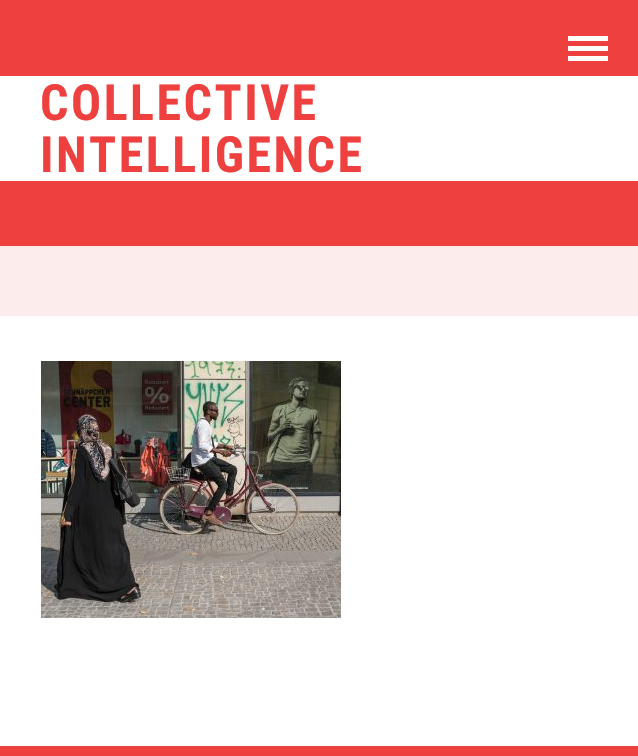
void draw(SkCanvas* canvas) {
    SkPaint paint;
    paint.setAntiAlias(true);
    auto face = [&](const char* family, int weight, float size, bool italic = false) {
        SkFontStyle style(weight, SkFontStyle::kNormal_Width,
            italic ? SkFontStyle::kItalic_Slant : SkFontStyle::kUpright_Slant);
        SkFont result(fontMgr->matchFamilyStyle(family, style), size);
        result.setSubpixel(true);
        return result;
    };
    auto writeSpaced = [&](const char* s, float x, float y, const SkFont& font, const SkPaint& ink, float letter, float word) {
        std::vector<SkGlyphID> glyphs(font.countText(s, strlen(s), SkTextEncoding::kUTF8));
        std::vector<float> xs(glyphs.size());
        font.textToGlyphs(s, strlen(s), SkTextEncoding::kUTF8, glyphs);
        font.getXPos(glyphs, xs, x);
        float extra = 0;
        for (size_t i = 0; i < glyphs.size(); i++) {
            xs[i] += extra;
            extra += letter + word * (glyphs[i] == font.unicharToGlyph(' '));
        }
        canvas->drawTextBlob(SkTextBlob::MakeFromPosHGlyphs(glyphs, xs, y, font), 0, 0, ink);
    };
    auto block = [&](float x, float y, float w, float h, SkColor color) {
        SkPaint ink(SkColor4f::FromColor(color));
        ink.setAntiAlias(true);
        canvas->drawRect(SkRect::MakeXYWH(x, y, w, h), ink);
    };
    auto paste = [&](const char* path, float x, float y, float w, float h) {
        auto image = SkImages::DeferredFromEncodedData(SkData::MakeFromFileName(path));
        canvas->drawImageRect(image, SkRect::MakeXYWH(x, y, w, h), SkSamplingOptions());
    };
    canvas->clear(SkColorSetRGB(239, 64, 64));
    block(568, 36, 40, 5, SK_ColorWHITE);
    block(568, 46, 40, 5, SK_ColorWHITE);
    block(568, 56, 40, 5, SK_ColorWHITE);
    block(0, 76, 638, 105, SK_ColorWHITE);
    auto kFont1 = face("Roboto Condensed", 700, 50);
    paint.setColor(SkColorSetRGB(239, 64, 64));
    writeSpaced("COLLECTIVE", 40, 120, kFont1, paint, 2.5f, 0);
    writeSpaced("INTELLIGENCE", 40, 172, kFont1, paint, 2.5f, 0);
    block(0, 316, 638, 430, SK_ColorWHITE);
    block(0, 246, 638, 70, SkColorSetRGB(253, 236, 236));
    paste("pic1.png", 41, 361, 300, 257);
}
